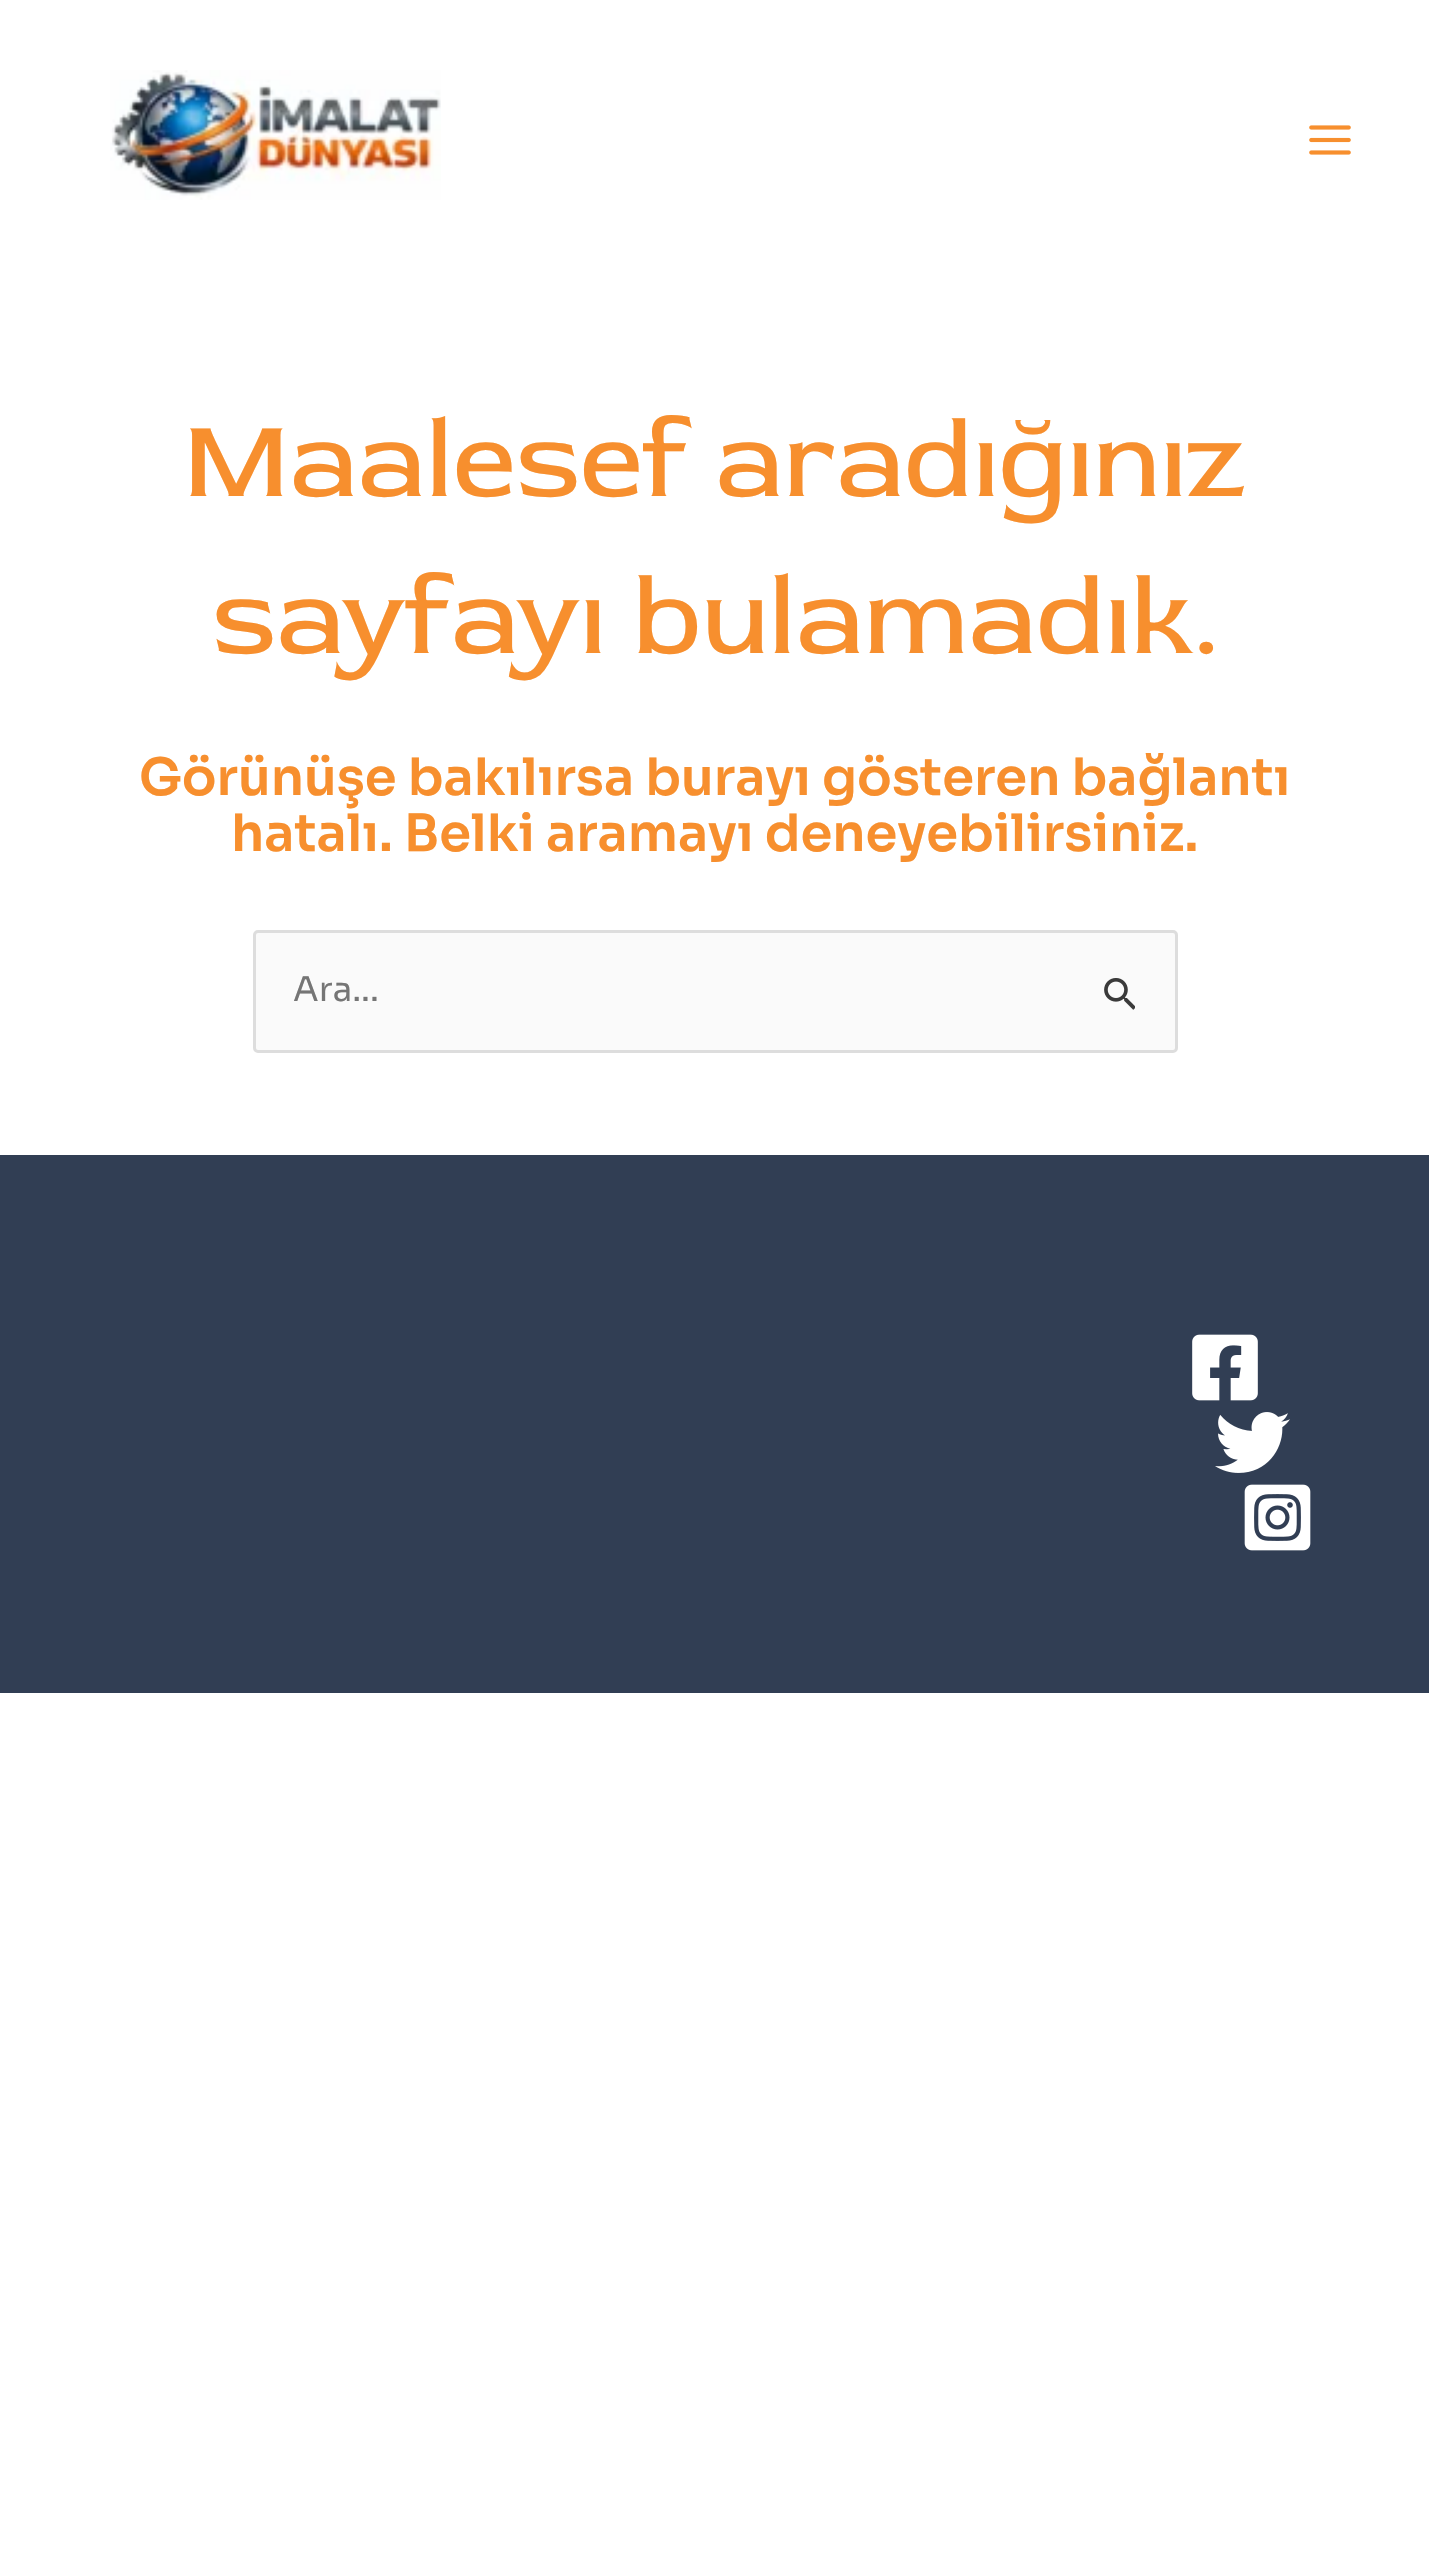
void draw(SkCanvas* canvas) {
    SkPaint paint;
    paint.setAntiAlias(true);
    auto face = [&](const char* family, int weight, float size, bool italic = false) {
        SkFontStyle style(weight, SkFontStyle::kNormal_Width,
            italic ? SkFontStyle::kItalic_Slant : SkFontStyle::kUpright_Slant);
        SkFont result(fontMgr->matchFamilyStyle(family, style), size);
        result.setSubpixel(true);
        return result;
    };
    auto write = [&](const char* s, float x, float y, const SkFont& font, SkColor color) {
        SkPaint ink(SkColor4f::FromColor(color));
        ink.setAntiAlias(true);
        canvas->drawString(s, x, y, font, ink);
    };
    auto block = [&](float x, float y, float w, float h, SkColor color) {
        SkPaint ink(SkColor4f::FromColor(color));
        ink.setAntiAlias(true);
        canvas->drawRect(SkRect::MakeXYWH(x, y, w, h), ink);
    };
    auto paste = [&](const char* path, float x, float y, float w, float h) {
        auto image = SkImages::DeferredFromEncodedData(SkData::MakeFromFileName(path));
        canvas->drawImageRect(image, SkRect::MakeXYWH(x, y, w, h), SkSamplingOptions());
    };
    canvas->clear(SK_ColorWHITE);
    paste("pic1.png", 110, 70, 331, 130);
    paste("pic2.png", 1309, 125, 42, 30);
    auto kFont1 = face("Red Rose", 400, 112.5f);
    write("Maalesef aradığınız", 183, 496, kFont1, SkColorSetRGB(247, 143, 46));
    write("sayfayı bulamadık.", 212, 653, kFont1, SkColorSetRGB(247, 143, 46));
    auto kFont2 = face("Sora", 600, 51.3f);
    write("Görünüşe bakılırsa burayı gösteren bağlantı", 139, 795, kFont2, SkColorSetRGB(247, 143, 46));
    write("hatalı. Belki aramayı deneyebilirsiniz.", 231, 851, kFont2, SkColorSetRGB(247, 143, 46));
    paint.setColor(SkColorSetRGB(250, 250, 250));
    canvas->drawRoundRect(SkRect::MakeXYWH(254.5f, 931.5f, 922, 120), 3.5f, 3.5f, paint);
    paint.setStyle(SkPaint::kStroke_Style);
    paint.setStrokeWidth(3);
    paint.setColor(SkColorSetRGB(221, 221, 221));
    canvas->drawRoundRect(SkRect::MakeXYWH(254.5f, 931.5f, 922, 120), 3.5f, 3.5f, paint);
    auto kFont3 = face("Sora", 400, 34);
    write("Ara...", 293, 1001, kFont3, SkColorSetRGB(117, 117, 117));
    paste("pic3.png", 1104, 978, 31, 32);
    block(0, 1155, 1429, 538, SkColorSetRGB(49, 62, 84));
    paste("pic4.png", 1192, 1334, 66, 67);
    paste("pic5.png", 1215, 1412, 75, 61);
    paste("pic6.png", 1244, 1484, 67, 67);
}
